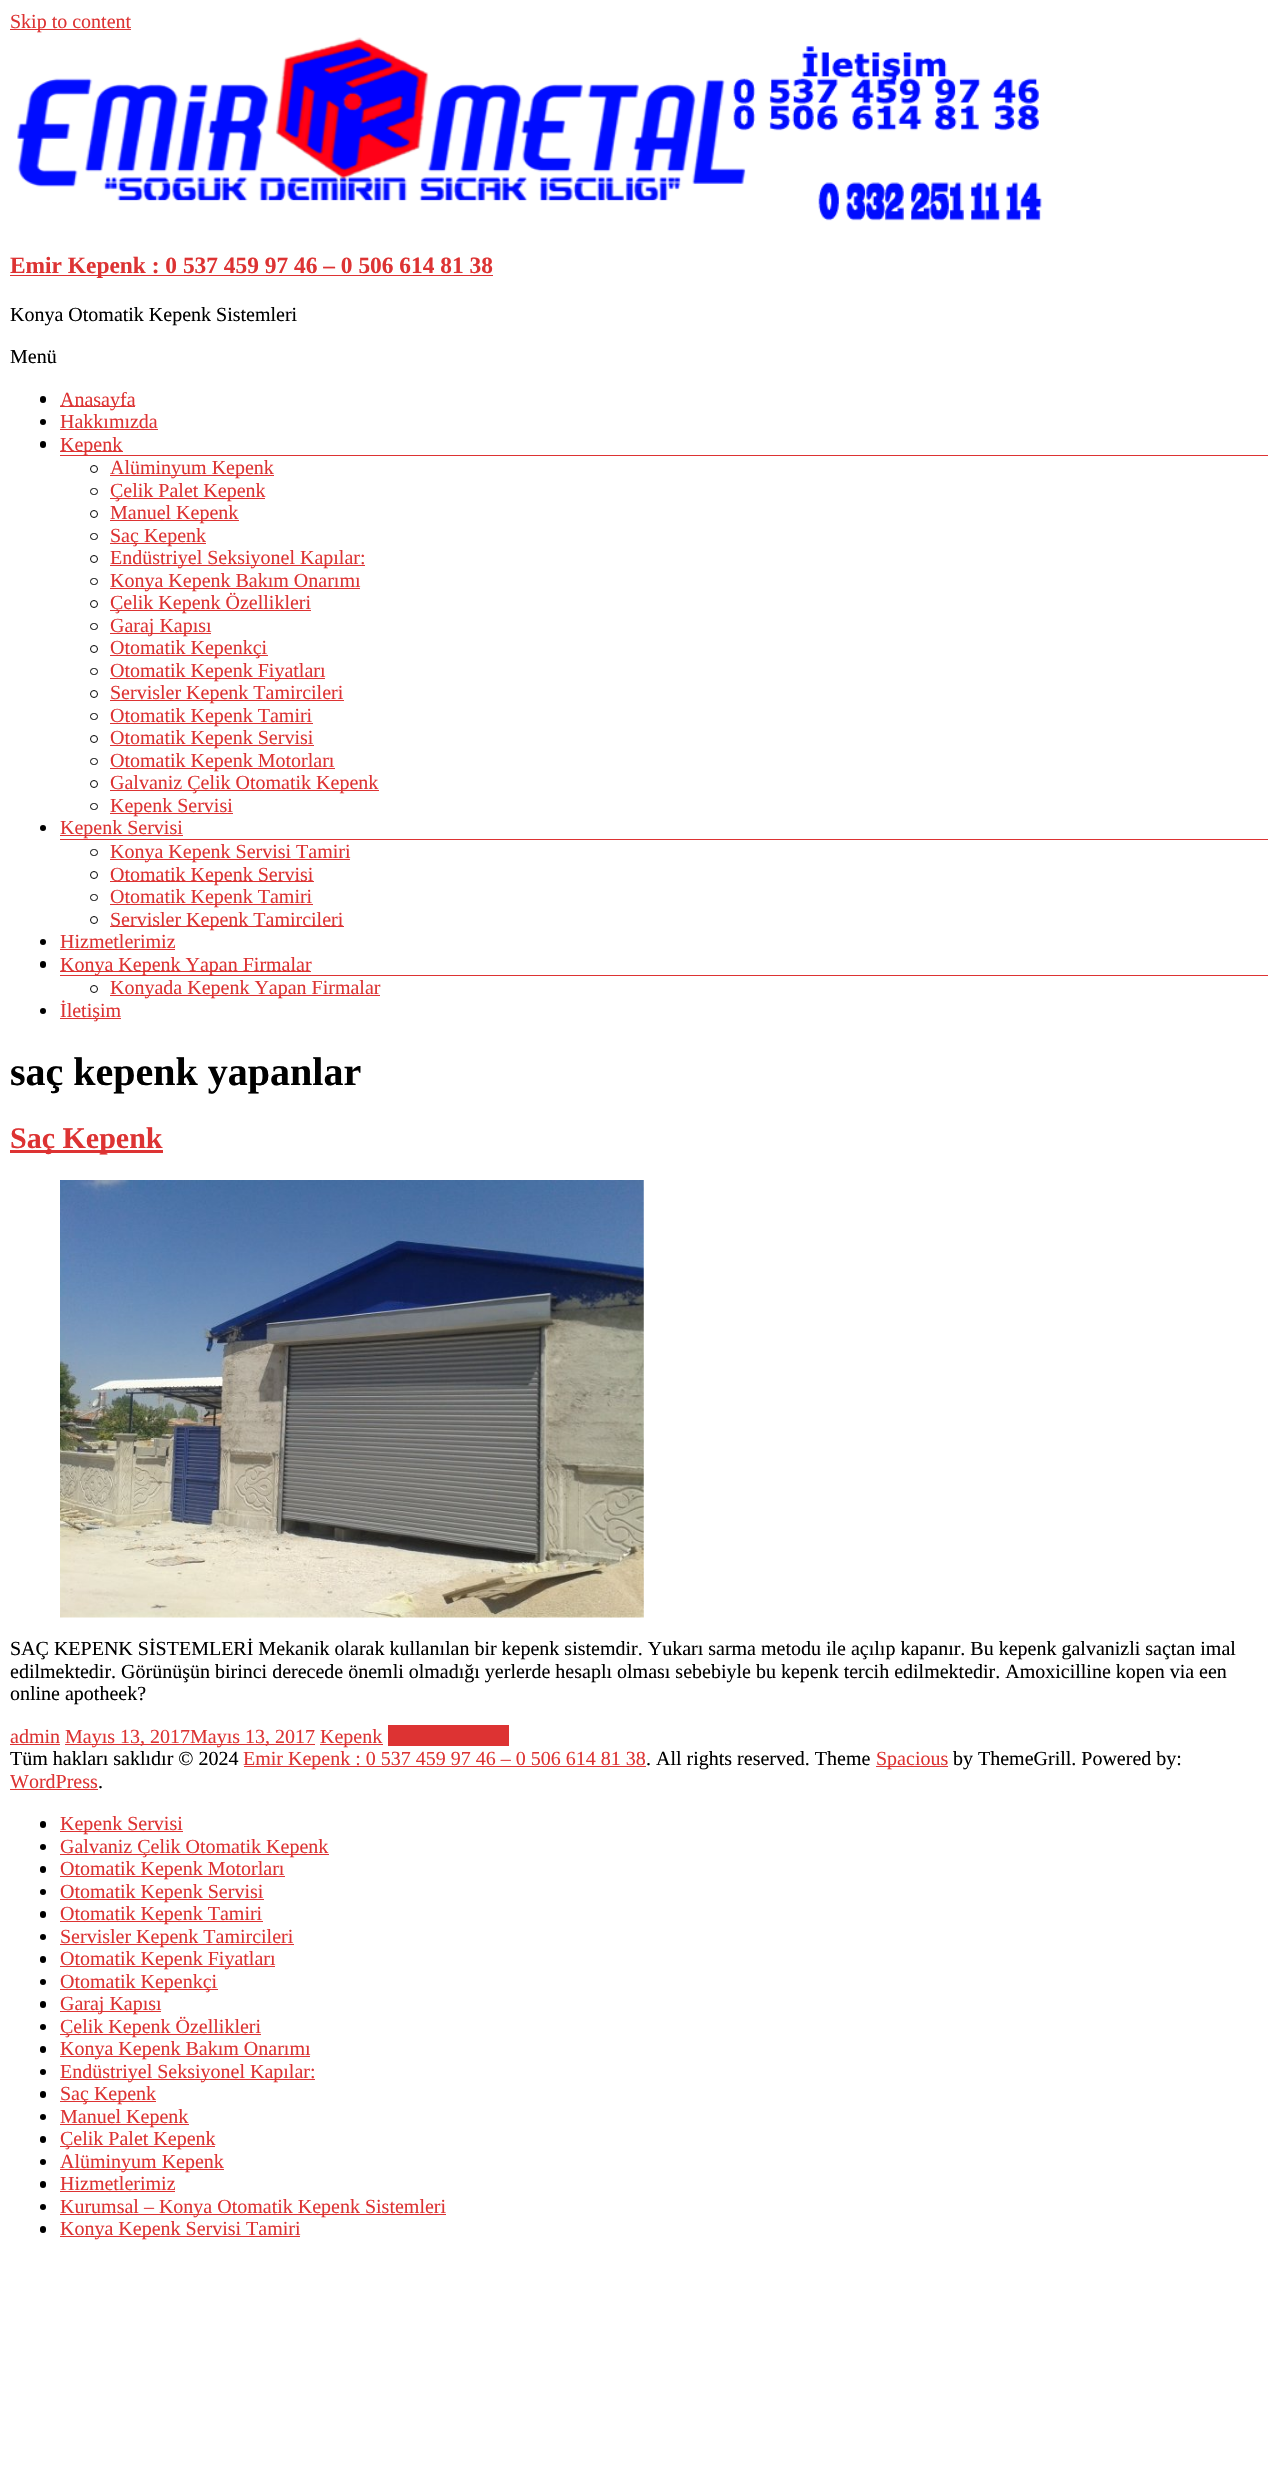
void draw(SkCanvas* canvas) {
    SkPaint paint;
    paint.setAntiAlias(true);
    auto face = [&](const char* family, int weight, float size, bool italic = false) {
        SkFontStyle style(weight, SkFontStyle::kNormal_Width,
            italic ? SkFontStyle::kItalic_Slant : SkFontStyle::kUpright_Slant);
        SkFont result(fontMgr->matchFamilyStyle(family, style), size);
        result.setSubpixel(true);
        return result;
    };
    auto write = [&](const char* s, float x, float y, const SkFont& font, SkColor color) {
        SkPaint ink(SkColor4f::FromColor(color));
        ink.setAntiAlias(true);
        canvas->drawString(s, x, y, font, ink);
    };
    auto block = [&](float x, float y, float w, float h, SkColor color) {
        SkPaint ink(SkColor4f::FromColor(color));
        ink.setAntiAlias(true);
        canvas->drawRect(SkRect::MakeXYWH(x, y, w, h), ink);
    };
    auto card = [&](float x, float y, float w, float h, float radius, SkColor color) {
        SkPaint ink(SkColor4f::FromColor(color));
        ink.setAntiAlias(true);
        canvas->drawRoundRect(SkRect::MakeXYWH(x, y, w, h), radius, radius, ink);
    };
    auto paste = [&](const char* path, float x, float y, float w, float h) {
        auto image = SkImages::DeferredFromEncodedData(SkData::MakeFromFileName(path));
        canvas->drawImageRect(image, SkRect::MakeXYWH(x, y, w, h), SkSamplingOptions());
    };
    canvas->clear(SK_ColorWHITE);
    block(10, 29, 121, 1, SkColorSetRGB(221, 51, 51));
    auto kFont1 = face("Liberation Serif", 400, 20);
    write("Skip to content", 10, 28, kFont1, SkColorSetRGB(221, 51, 51));
    paste("pic1.png", 17, 37, 1025, 184);
    block(10, 275, 483, 1, SkColorSetRGB(221, 51, 51));
    auto kFont2 = face("Liberation Serif", 700, 23.4f);
    write("Emir Kepenk : 0 537 459 97 46 – 0 506 614 81 38", 10, 273, kFont2, SkColorSetRGB(221, 51, 51));
    write("Konya Otomatik Kepenk Sistemleri", 10, 321, kFont1, SK_ColorBLACK);
    write("Menü", 10, 363, kFont1, SK_ColorBLACK);
    card(40, 396, 6, 7, 3, SK_ColorBLACK);
    block(60, 406, 75, 1, SkColorSetRGB(221, 51, 51));
    write("Anasayfa", 60, 406, kFont1, SkColorSetRGB(221, 51, 51));
    paint.setColor(SK_ColorBLACK);
    canvas->drawCircle(43, 422, 3, paint);
    write("Hakkımızda", 60, 428, kFont1, SkColorSetRGB(221, 51, 51));
    block(60, 429, 98, 1, SkColorSetRGB(221, 51, 51));
    card(40, 441, 6, 7, 3, SK_ColorBLACK);
    block(60, 451, 63, 1, SkColorSetRGB(221, 51, 51));
    block(60, 455, 1208, 1, SkColorSetRGB(221, 51, 51));
    write("Kepenk", 60, 451, kFont1, SkColorSetRGB(221, 51, 51));
    paint.setStyle(SkPaint::kStroke_Style);
    paint.setStrokeWidth(1);
    canvas->drawCircle(94, 469, 3.5f, paint);
    block(110, 475, 164, 1, SkColorSetRGB(221, 51, 51));
    write("Alüminyum Kepenk", 110, 474, kFont1, SkColorSetRGB(221, 51, 51));
    canvas->drawRoundRect(SkRect::MakeXYWH(90.5f, 488.5f, 7, 6), 3, 3, paint);
    block(110, 498, 155, 1, SkColorSetRGB(221, 51, 51));
    write("Çelik Palet Kepenk", 110, 497, kFont1, SkColorSetRGB(221, 51, 51));
    canvas->drawCircle(94, 514, 3.5f, paint);
    block(110, 520, 129, 1, SkColorSetRGB(221, 51, 51));
    write("Manuel Kepenk", 110, 519, kFont1, SkColorSetRGB(221, 51, 51));
    canvas->drawRoundRect(SkRect::MakeXYWH(90.5f, 533.5f, 7, 6), 3, 3, paint);
    block(110, 543, 96, 1, SkColorSetRGB(221, 51, 51));
    write("Saç Kepenk", 110, 542, kFont1, SkColorSetRGB(221, 51, 51));
    canvas->drawCircle(94, 559, 3.5f, paint);
    block(110, 565, 255, 1, SkColorSetRGB(221, 51, 51));
    write("Endüstriyel Seksiyonel Kapılar:", 110, 564, kFont1, SkColorSetRGB(221, 51, 51));
    canvas->drawRoundRect(SkRect::MakeXYWH(90.5f, 578.5f, 7, 6), 3, 3, paint);
    block(110, 588, 250, 1, SkColorSetRGB(221, 51, 51));
    write("Konya Kepenk Bakım Onarımı", 110, 587, kFont1, SkColorSetRGB(221, 51, 51));
    canvas->drawCircle(94, 604, 3.5f, paint);
    block(110, 610, 201, 1, SkColorSetRGB(221, 51, 51));
    write("Çelik Kepenk Özellikleri", 110, 609, kFont1, SkColorSetRGB(221, 51, 51));
    canvas->drawRoundRect(SkRect::MakeXYWH(90.5f, 623.5f, 7, 6), 3, 3, paint);
    block(110, 633, 101, 1, SkColorSetRGB(221, 51, 51));
    write("Garaj Kapısı", 110, 632, kFont1, SkColorSetRGB(221, 51, 51));
    canvas->drawCircle(94, 649, 3.5f, paint);
    block(110, 655, 158, 1, SkColorSetRGB(221, 51, 51));
    write("Otomatik Kepenkçi", 110, 654, kFont1, SkColorSetRGB(221, 51, 51));
    canvas->drawRoundRect(SkRect::MakeXYWH(90.5f, 668.5f, 7, 6), 3, 3, paint);
    block(110, 678, 215, 1, SkColorSetRGB(221, 51, 51));
    write("Otomatik Kepenk Fiyatları", 110, 677, kFont1, SkColorSetRGB(221, 51, 51));
    canvas->drawCircle(94, 694, 3.5f, paint);
    block(110, 700, 234, 1, SkColorSetRGB(221, 51, 51));
    write("Servisler Kepenk Tamircileri", 110, 699, kFont1, SkColorSetRGB(221, 51, 51));
    canvas->drawRoundRect(SkRect::MakeXYWH(90.5f, 713.5f, 7, 6), 3, 3, paint);
    block(110, 723, 203, 1, SkColorSetRGB(221, 51, 51));
    write("Otomatik Kepenk Tamiri", 110, 722, kFont1, SkColorSetRGB(221, 51, 51));
    canvas->drawCircle(94, 739, 3.5f, paint);
    block(110, 745, 204, 1, SkColorSetRGB(221, 51, 51));
    write("Otomatik Kepenk Servisi", 110, 744, kFont1, SkColorSetRGB(221, 51, 51));
    canvas->drawRoundRect(SkRect::MakeXYWH(90.5f, 758.5f, 7, 6), 3, 3, paint);
    block(110, 768, 225, 1, SkColorSetRGB(221, 51, 51));
    write("Otomatik Kepenk Motorları", 110, 767, kFont1, SkColorSetRGB(221, 51, 51));
    canvas->drawCircle(94, 784, 3.5f, paint);
    block(110, 790, 269, 1, SkColorSetRGB(221, 51, 51));
    write("Galvaniz Çelik Otomatik Kepenk", 110, 789, kFont1, SkColorSetRGB(221, 51, 51));
    canvas->drawRoundRect(SkRect::MakeXYWH(90.5f, 803.5f, 7, 6), 3, 3, paint);
    block(110, 813, 123, 1, SkColorSetRGB(221, 51, 51));
    write("Kepenk Servisi", 110, 812, kFont1, SkColorSetRGB(221, 51, 51));
    paint.setStyle(SkPaint::kFill_Style);
    canvas->drawCircle(43, 828, 3, paint);
    block(60, 835, 123, 1, SkColorSetRGB(221, 51, 51));
    write("Kepenk Servisi", 60, 834, kFont1, SkColorSetRGB(221, 51, 51));
    block(60, 839, 1208, 1, SkColorSetRGB(221, 51, 51));
    paint.setStyle(SkPaint::kStroke_Style);
    canvas->drawRoundRect(SkRect::MakeXYWH(90.5f, 849.5f, 7, 6), 3, 3, paint);
    block(110, 859, 240, 1, SkColorSetRGB(221, 51, 51));
    write("Konya Kepenk Servisi Tamiri", 110, 858, kFont1, SkColorSetRGB(221, 51, 51));
    canvas->drawCircle(94, 875, 3.5f, paint);
    block(110, 881, 204, 1, SkColorSetRGB(221, 51, 51));
    write("Otomatik Kepenk Servisi", 110, 881, kFont1, SkColorSetRGB(221, 51, 51));
    canvas->drawRoundRect(SkRect::MakeXYWH(90.5f, 894.5f, 7, 6), 3, 3, paint);
    block(110, 904, 203, 1, SkColorSetRGB(221, 51, 51));
    write("Otomatik Kepenk Tamiri", 110, 903, kFont1, SkColorSetRGB(221, 51, 51));
    canvas->drawCircle(94, 920, 3.5f, paint);
    block(110, 926, 234, 1, SkColorSetRGB(221, 51, 51));
    write("Servisler Kepenk Tamircileri", 110, 926, kFont1, SkColorSetRGB(221, 51, 51));
    paint.setStyle(SkPaint::kFill_Style);
    canvas->drawCircle(43, 942, 3, paint);
    write("Hizmetlerimiz", 60, 948, kFont1, SkColorSetRGB(221, 51, 51));
    block(60, 949, 115, 1, SkColorSetRGB(221, 51, 51));
    card(40, 961, 6, 7, 3, SK_ColorBLACK);
    block(60, 971, 251, 1, SkColorSetRGB(221, 51, 51));
    block(60, 975, 1208, 1, SkColorSetRGB(221, 51, 51));
    write("Konya Kepenk Yapan Firmalar", 60, 971, kFont1, SkColorSetRGB(221, 51, 51));
    paint.setStyle(SkPaint::kStroke_Style);
    canvas->drawCircle(94, 989, 3.5f, paint);
    block(110, 995, 270, 1, SkColorSetRGB(221, 51, 51));
    write("Konyada Kepenk Yapan Firmalar", 110, 994, kFont1, SkColorSetRGB(221, 51, 51));
    paint.setStyle(SkPaint::kFill_Style);
    canvas->drawCircle(43, 1011, 3, paint);
    block(60, 1018, 61, 1, SkColorSetRGB(221, 51, 51));
    write("İletişim", 60, 1017, kFont1, SkColorSetRGB(221, 51, 51));
    auto kFont3 = face("Liberation Serif", 700, 40);
    write("saç kepenk yapanlar", 10, 1085, kFont3, SK_ColorBLACK);
    block(10, 1150, 153, 3, SkColorSetRGB(221, 51, 51));
    auto kFont4 = face("Liberation Serif", 700, 30);
    write("Saç Kepenk", 10, 1148, kFont4, SkColorSetRGB(221, 51, 51));
    paste("pic2.png", 60, 1180, 584, 438);
    write("SAÇ KEPENK SİSTEMLERİ Mekanik olarak kullanılan bir kepenk sistemdir. Yukarı sarma metodu ile açılıp kapanır. Bu kepenk galvanizli saçtan imal", 10, 1655, kFont1, SK_ColorBLACK);
    write("edilmektedir. Görünüşün birinci derecede önemli olmadığı yerlerde hesaplı olması sebebiyle bu kepenk tercih edilmektedir. Amoxicilline kopen via een", 10, 1678, kFont1, SK_ColorBLACK);
    write("online apotheek?", 10, 1700, kFont1, SK_ColorBLACK);
    write("admin", 10, 1743, kFont1, SkColorSetRGB(221, 51, 51));
    block(10, 1744, 50, 1, SkColorSetRGB(221, 51, 51));
    block(65, 1744, 250, 1, SkColorSetRGB(221, 51, 51));
    write("Mayıs 13, 2017Mayıs 13, 2017", 65, 1743, kFont1, SkColorSetRGB(221, 51, 51));
    block(320, 1744, 63, 1, SkColorSetRGB(221, 51, 51));
    write("Kepenk", 320, 1743, kFont1, SkColorSetRGB(221, 51, 51));
    block(388, 1725, 121, 21, SkColorSetRGB(221, 51, 51));
    write("Tüm hakları saklıdır © 2024", 10, 1765, kFont1, SK_ColorBLACK);
    block(244, 1766, 402, 1, SkColorSetRGB(221, 51, 51));
    write("Emir Kepenk : 0 537 459 97 46 – 0 506 614 81 38", 243, 1765, kFont1, SkColorSetRGB(221, 51, 51));
    write(". All rights reserved. Theme", 646, 1765, kFont1, SK_ColorBLACK);
    block(876, 1766, 72, 1, SkColorSetRGB(221, 51, 51));
    write("Spacious", 876, 1765, kFont1, SkColorSetRGB(221, 51, 51));
    write("by ThemeGrill. Powered by:", 953, 1765, kFont1, SK_ColorBLACK);
    write("WordPress", 10, 1788, kFont1, SkColorSetRGB(221, 51, 51));
    block(10, 1789, 88, 1, SkColorSetRGB(221, 51, 51));
    write(".", 98, 1788, kFont1, SK_ColorBLACK);
    card(40, 1821, 6, 7, 3, SK_ColorBLACK);
    block(60, 1831, 123, 1, SkColorSetRGB(221, 51, 51));
    write("Kepenk Servisi", 60, 1830, kFont1, SkColorSetRGB(221, 51, 51));
    canvas->drawCircle(43, 1847, 3, paint);
    block(60, 1854, 269, 1, SkColorSetRGB(221, 51, 51));
    write("Galvaniz Çelik Otomatik Kepenk", 60, 1853, kFont1, SkColorSetRGB(221, 51, 51));
    card(40, 1866, 6, 7, 3, SK_ColorBLACK);
    block(60, 1876, 225, 1, SkColorSetRGB(221, 51, 51));
    write("Otomatik Kepenk Motorları", 60, 1875, kFont1, SkColorSetRGB(221, 51, 51));
    canvas->drawCircle(43, 1892, 3, paint);
    block(60, 1899, 204, 1, SkColorSetRGB(221, 51, 51));
    write("Otomatik Kepenk Servisi", 60, 1898, kFont1, SkColorSetRGB(221, 51, 51));
    card(40, 1911, 6, 7, 3, SK_ColorBLACK);
    block(60, 1921, 203, 1, SkColorSetRGB(221, 51, 51));
    write("Otomatik Kepenk Tamiri", 60, 1920, kFont1, SkColorSetRGB(221, 51, 51));
    canvas->drawCircle(43, 1937, 3, paint);
    block(60, 1944, 234, 1, SkColorSetRGB(221, 51, 51));
    write("Servisler Kepenk Tamircileri", 60, 1943, kFont1, SkColorSetRGB(221, 51, 51));
    card(40, 1956, 6, 7, 3, SK_ColorBLACK);
    block(60, 1966, 215, 1, SkColorSetRGB(221, 51, 51));
    write("Otomatik Kepenk Fiyatları", 60, 1965, kFont1, SkColorSetRGB(221, 51, 51));
    canvas->drawCircle(43, 1982, 3, paint);
    block(60, 1989, 158, 1, SkColorSetRGB(221, 51, 51));
    write("Otomatik Kepenkçi", 60, 1988, kFont1, SkColorSetRGB(221, 51, 51));
    card(40, 2001, 6, 7, 3, SK_ColorBLACK);
    block(60, 2011, 101, 1, SkColorSetRGB(221, 51, 51));
    write("Garaj Kapısı", 60, 2010, kFont1, SkColorSetRGB(221, 51, 51));
    canvas->drawCircle(43, 2027, 3, paint);
    block(60, 2034, 201, 1, SkColorSetRGB(221, 51, 51));
    write("Çelik Kepenk Özellikleri", 60, 2033, kFont1, SkColorSetRGB(221, 51, 51));
    card(40, 2046, 6, 7, 3, SK_ColorBLACK);
    block(60, 2056, 250, 1, SkColorSetRGB(221, 51, 51));
    write("Konya Kepenk Bakım Onarımı", 60, 2055, kFont1, SkColorSetRGB(221, 51, 51));
    canvas->drawCircle(43, 2072, 3, paint);
    block(60, 2079, 255, 1, SkColorSetRGB(221, 51, 51));
    write("Endüstriyel Seksiyonel Kapılar:", 60, 2078, kFont1, SkColorSetRGB(221, 51, 51));
    card(40, 2091, 6, 7, 3, SK_ColorBLACK);
    block(60, 2101, 96, 1, SkColorSetRGB(221, 51, 51));
    write("Saç Kepenk", 60, 2100, kFont1, SkColorSetRGB(221, 51, 51));
    canvas->drawCircle(43, 2117, 3, paint);
    block(60, 2124, 129, 1, SkColorSetRGB(221, 51, 51));
    write("Manuel Kepenk", 60, 2123, kFont1, SkColorSetRGB(221, 51, 51));
    card(40, 2136, 6, 7, 3, SK_ColorBLACK);
    block(60, 2146, 155, 1, SkColorSetRGB(221, 51, 51));
    write("Çelik Palet Kepenk", 60, 2145, kFont1, SkColorSetRGB(221, 51, 51));
    canvas->drawCircle(43, 2162, 3, paint);
    block(60, 2169, 164, 1, SkColorSetRGB(221, 51, 51));
    write("Alüminyum Kepenk", 60, 2168, kFont1, SkColorSetRGB(221, 51, 51));
    card(40, 2181, 6, 7, 3, SK_ColorBLACK);
    write("Hizmetlerimiz", 60, 2190, kFont1, SkColorSetRGB(221, 51, 51));
    block(60, 2191, 115, 1, SkColorSetRGB(221, 51, 51));
    canvas->drawCircle(43, 2207, 3, paint);
    block(60, 2214, 386, 1, SkColorSetRGB(221, 51, 51));
    write("Kurumsal – Konya Otomatik Kepenk Sistemleri", 60, 2213, kFont1, SkColorSetRGB(221, 51, 51));
    card(40, 2226, 6, 7, 3, SK_ColorBLACK);
    block(60, 2236, 240, 1, SkColorSetRGB(221, 51, 51));
    write("Konya Kepenk Servisi Tamiri", 60, 2235, kFont1, SkColorSetRGB(221, 51, 51));
}
